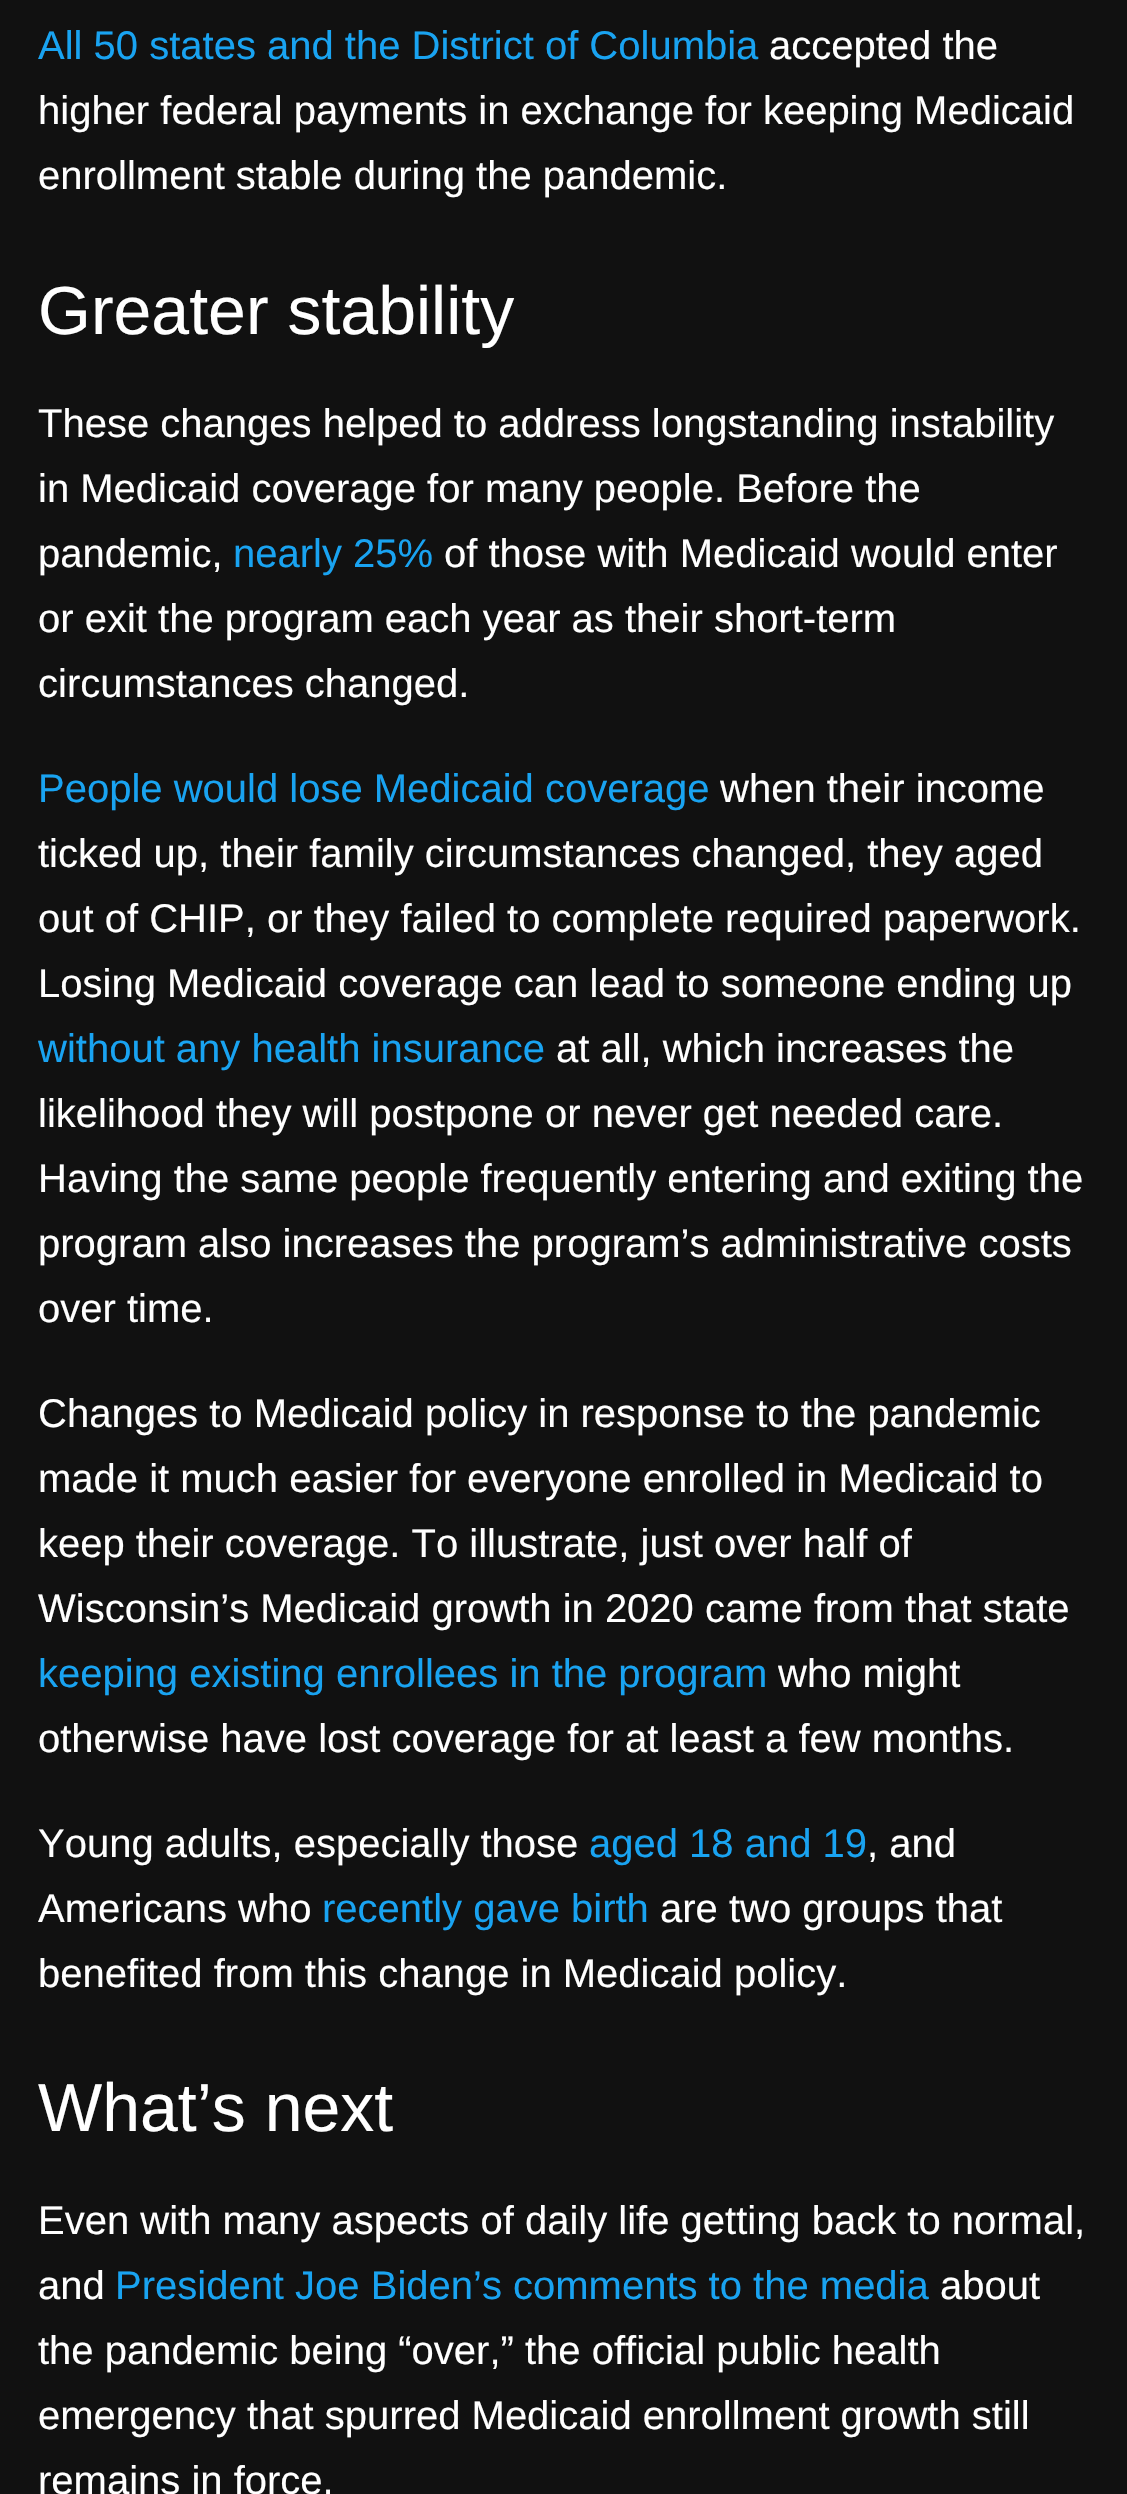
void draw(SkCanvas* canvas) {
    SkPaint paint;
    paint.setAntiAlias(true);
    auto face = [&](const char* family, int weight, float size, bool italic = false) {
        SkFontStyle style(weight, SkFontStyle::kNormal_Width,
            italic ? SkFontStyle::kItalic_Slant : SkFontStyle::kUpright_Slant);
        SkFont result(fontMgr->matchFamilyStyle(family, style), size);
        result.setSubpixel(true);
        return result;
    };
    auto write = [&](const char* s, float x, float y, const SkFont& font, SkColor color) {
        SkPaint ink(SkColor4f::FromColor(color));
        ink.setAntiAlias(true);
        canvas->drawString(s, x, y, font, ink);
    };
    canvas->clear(SkColorSetRGB(17, 17, 17));
    auto kFont1 = face("Liberation Sans", 400, 40);
    write("All 50 states and the District of Columbia", 38, 59, kFont1, SkColorSetRGB(25, 163, 241));
    write("accepted the", 769, 59, kFont1, SK_ColorWHITE);
    write("higher federal payments in exchange for keeping Medicaid", 38, 124, kFont1, SK_ColorWHITE);
    write("enrollment stable during the pandemic.", 38, 189, kFont1, SK_ColorWHITE);
    auto kFont2 = face("Liberation Sans", 400, 68);
    write("Greater stability", 38, 334, kFont2, SK_ColorWHITE);
    write("These changes helped to address longstanding instability", 38, 437, kFont1, SK_ColorWHITE);
    write("in Medicaid coverage for many people. Before the", 38, 502, kFont1, SK_ColorWHITE);
    write("pandemic,", 38, 567, kFont1, SK_ColorWHITE);
    write("nearly 25%", 233, 567, kFont1, SkColorSetRGB(25, 163, 241));
    write("of those with Medicaid would enter", 444, 567, kFont1, SK_ColorWHITE);
    write("or exit the program each year as their short-term", 38, 632, kFont1, SK_ColorWHITE);
    write("circumstances changed.", 38, 697, kFont1, SK_ColorWHITE);
    write("People would lose Medicaid coverage", 38, 802, kFont1, SkColorSetRGB(25, 163, 241));
    write("when their income", 720, 802, kFont1, SK_ColorWHITE);
    write("ticked up, their family circumstances changed, they aged", 38, 867, kFont1, SK_ColorWHITE);
    write("out of CHIP, or they failed to complete required paperwork.", 38, 932, kFont1, SK_ColorWHITE);
    write("Losing Medicaid coverage can lead to someone ending up", 38, 997, kFont1, SK_ColorWHITE);
    write("without any health insurance", 38, 1062, kFont1, SkColorSetRGB(25, 163, 241));
    write("at all, which increases the", 556, 1062, kFont1, SK_ColorWHITE);
    write("likelihood they will postpone or never get needed care.", 38, 1127, kFont1, SK_ColorWHITE);
    write("Having the same people frequently entering and exiting the", 38, 1192, kFont1, SK_ColorWHITE);
    write("program also increases the program’s administrative costs", 38, 1257, kFont1, SK_ColorWHITE);
    write("over time.", 38, 1322, kFont1, SK_ColorWHITE);
    write("Changes to Medicaid policy in response to the pandemic", 38, 1427, kFont1, SK_ColorWHITE);
    write("made it much easier for everyone enrolled in Medicaid to", 38, 1492, kFont1, SK_ColorWHITE);
    write("keep their coverage. To illustrate, just over half of", 38, 1557, kFont1, SK_ColorWHITE);
    write("Wisconsin’s Medicaid growth in 2020 came from that state", 38, 1622, kFont1, SK_ColorWHITE);
    write("keeping existing enrollees in the program", 38, 1687, kFont1, SkColorSetRGB(25, 163, 241));
    write("who might", 778, 1687, kFont1, SK_ColorWHITE);
    write("otherwise have lost coverage for at least a few months.", 38, 1752, kFont1, SK_ColorWHITE);
    write("Young adults, especially those", 38, 1857, kFont1, SK_ColorWHITE);
    write("aged 18 and 19", 589, 1857, kFont1, SkColorSetRGB(25, 163, 241));
    write(", and", 867, 1857, kFont1, SK_ColorWHITE);
    write("Americans who", 38, 1922, kFont1, SK_ColorWHITE);
    write("recently gave birth", 322, 1922, kFont1, SkColorSetRGB(25, 163, 241));
    write("are two groups that", 660, 1922, kFont1, SK_ColorWHITE);
    write("benefited from this change in Medicaid policy.", 38, 1987, kFont1, SK_ColorWHITE);
    write("What’s next", 38, 2131, kFont2, SK_ColorWHITE);
    write("Even with many aspects of daily life getting back to normal,", 38, 2234, kFont1, SK_ColorWHITE);
    write("and", 38, 2299, kFont1, SK_ColorWHITE);
    write("President Joe Biden’s comments to the media", 115, 2299, kFont1, SkColorSetRGB(25, 163, 241));
    write("about", 940, 2299, kFont1, SK_ColorWHITE);
    write("the pandemic being “over,” the official public health", 38, 2364, kFont1, SK_ColorWHITE);
    write("emergency that spurred Medicaid enrollment growth still", 38, 2429, kFont1, SK_ColorWHITE);
    write("remains in force.", 38, 2494, kFont1, SK_ColorWHITE);
}
